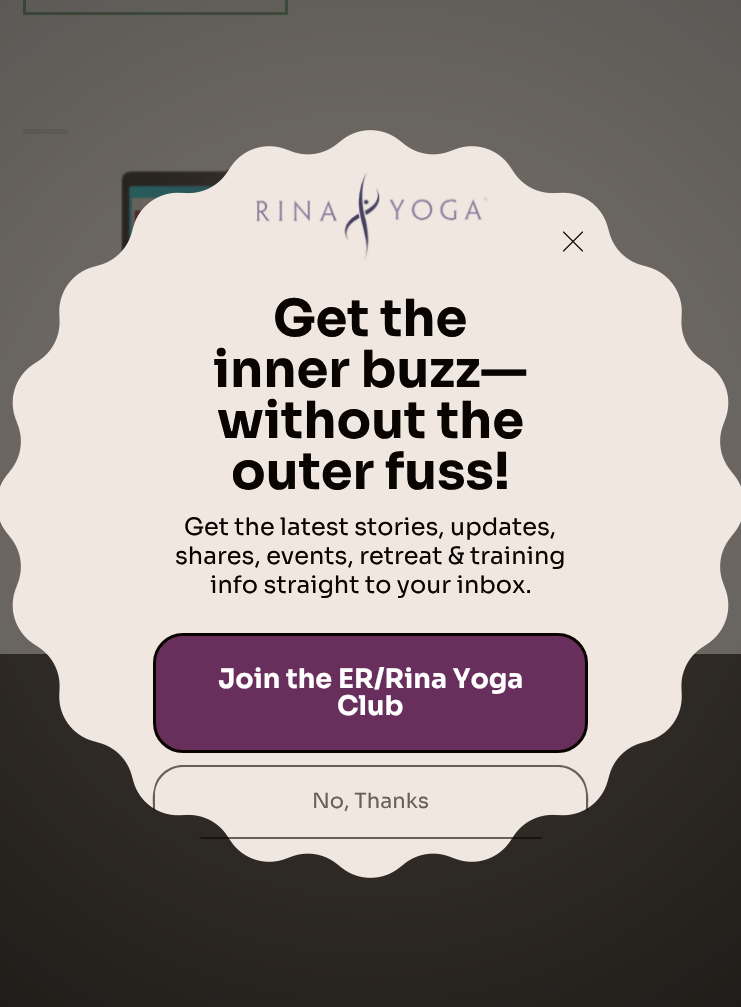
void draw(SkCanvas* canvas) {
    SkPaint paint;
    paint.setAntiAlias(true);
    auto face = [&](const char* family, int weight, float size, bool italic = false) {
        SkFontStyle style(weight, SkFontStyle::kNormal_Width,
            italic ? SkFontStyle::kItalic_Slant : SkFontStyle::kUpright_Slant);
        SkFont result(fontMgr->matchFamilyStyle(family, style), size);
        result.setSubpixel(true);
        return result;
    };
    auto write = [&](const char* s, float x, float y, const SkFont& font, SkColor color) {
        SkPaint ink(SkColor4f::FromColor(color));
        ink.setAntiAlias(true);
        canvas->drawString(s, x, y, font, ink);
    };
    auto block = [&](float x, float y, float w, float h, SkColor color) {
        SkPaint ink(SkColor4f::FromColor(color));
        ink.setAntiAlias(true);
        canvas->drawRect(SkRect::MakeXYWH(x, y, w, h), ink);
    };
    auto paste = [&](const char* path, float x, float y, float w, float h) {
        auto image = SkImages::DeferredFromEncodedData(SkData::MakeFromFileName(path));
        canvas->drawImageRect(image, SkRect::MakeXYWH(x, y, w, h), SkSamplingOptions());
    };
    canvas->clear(SK_ColorWHITE);
    paint.setStyle(SkPaint::kStroke_Style);
    paint.setStrokeWidth(3);
    paint.setColor(SkColorSetRGB(131, 182, 146));
    canvas->drawRect(SkRect::MakeXYWH(24.5f, -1.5f, 262, 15), paint);
    block(23, 129, 45, 5, SkColorSetRGB(230, 230, 230));
    paste("pic1.png", 85, 169, 145, 101);
    block(0, 656, 741, 351, SkColorSetRGB(51, 51, 51));
    block(0, 654, 741, 2, SkColorSetRGB(48, 48, 48));
    paint.setStyle(SkPaint::kFill_Style);
    {
        const SkColor colors[] = {SkColorSetARGB(179, 74, 61, 52), SkColorSetARGB(179, 22, 19, 14)};
        const float stops[] = {0, 1};
        paint.setShader(SkGradientShader::MakeRadial({371, 504}, 626, colors, stops, 2, SkTileMode::kClamp));
        paint.setAlpha(255);
    }
    canvas->drawRect(SkRect::MakeXYWH(0, 0, 741, 1007), paint);
    paste("pic2.png", 0, 130, 741, 748);
    paint.setStyle(SkPaint::kStroke_Style);
    paint.setStrokeWidth(1.1f);
    paint.setStrokeCap(SkPaint::kRound_Cap);
    paint.setShader(nullptr);
    paint.setColor(SkColorSetRGB(10, 4, 0));
    canvas->drawPath(SkPathBuilder().moveTo(563.5f, 232).lineTo(582.5f, 251).moveTo(582.5f, 232).lineTo(563.5f, 251).detach(), paint);
    paste("pic3.png", 256, 172, 233, 89);
    auto kFont1 = face("Sora", 700, 51);
    write("Get the", 273, 336, kFont1, SkColorSetRGB(10, 4, 0));
    write("inner buzz—", 213, 387, kFont1, SkColorSetRGB(10, 4, 0));
    write("without the", 217, 438, kFont1, SkColorSetRGB(10, 4, 0));
    write("outer fuss!", 231, 489, kFont1, SkColorSetRGB(10, 4, 0));
    auto kFont2 = face("Sora", 400, 24);
    write("Get the latest stories, updates,", 184, 535, kFont2, SkColorSetRGB(10, 4, 0));
    write("shares, events, retreat & training", 175, 564, kFont2, SkColorSetRGB(10, 4, 0));
    write("info straight to your inbox.", 210, 593, kFont2, SkColorSetRGB(10, 4, 0));
    paint.setStyle(SkPaint::kFill_Style);
    paint.setColor(SkColorSetRGB(105, 47, 92));
    canvas->drawRoundRect(SkRect::MakeXYWH(154.5f, 634.5f, 432, 117), 28.5f, 28.5f, paint);
    paint.setStyle(SkPaint::kStroke_Style);
    paint.setStrokeWidth(3);
    paint.setStrokeCap(SkPaint::kButt_Cap);
    paint.setColor(SkColorSetRGB(10, 4, 0));
    canvas->drawRoundRect(SkRect::MakeXYWH(154.5f, 634.5f, 432, 117), 28.5f, 28.5f, paint);
    auto kFont3 = face("Sora", 700, 27);
    write("Join the ER/Rina Yoga", 218, 688, kFont3, SK_ColorWHITE);
    write("Club", 337, 715, kFont3, SK_ColorWHITE);
    paint.setStyle(SkPaint::kFill_Style);
    paint.setColor(SkColorSetARGB(153, 10, 4, 0));
    canvas->drawPath(SkPathBuilder(SkPathFillType::kEvenOdd).moveTo(540, 839).lineTo(202, 839).lineTo(198, 837).lineTo(544, 837).close().moveTo(183, 765).cubicTo(169, 765, 156, 775, 154, 789).cubicTo(152, 795, 153, 803, 153, 809).lineTo(155, 811).lineTo(155, 795).cubicTo(155, 780, 168, 767, 183, 767).lineTo(558, 767).cubicTo(573, 767, 586, 780, 586, 795).lineTo(586, 811).lineTo(588, 810).cubicTo(588, 803, 589, 796, 587, 789).cubicTo(585, 775, 572, 765, 558, 765).close().detach(), paint);
    auto kFont4 = face("Sora", 400, 21);
    write("No, Thanks", 312, 808, kFont4, SkColorSetRGB(102, 95, 90));
}
